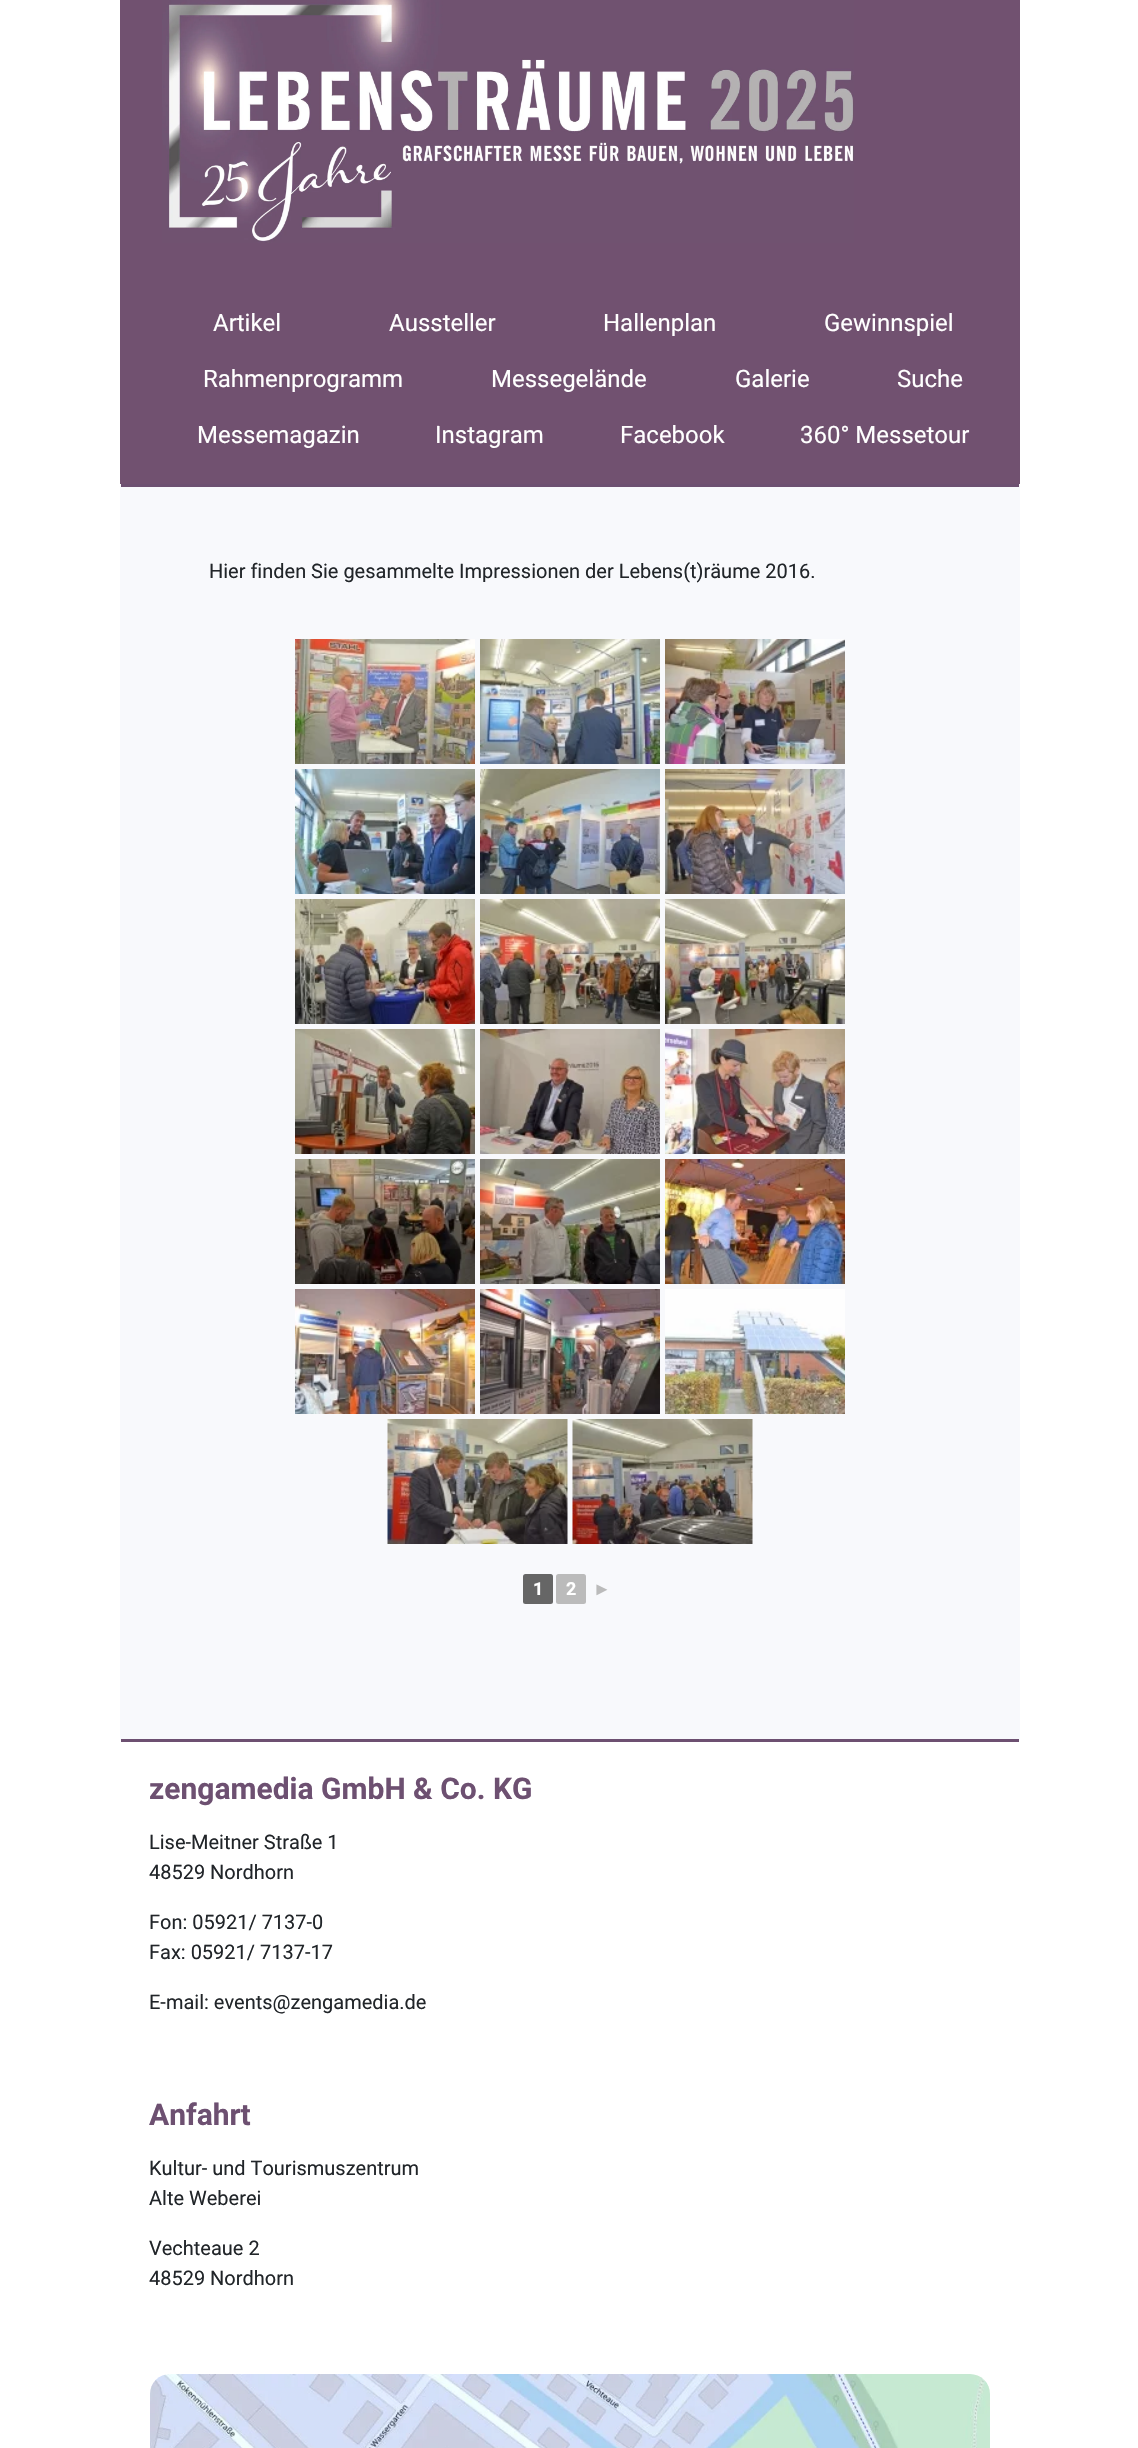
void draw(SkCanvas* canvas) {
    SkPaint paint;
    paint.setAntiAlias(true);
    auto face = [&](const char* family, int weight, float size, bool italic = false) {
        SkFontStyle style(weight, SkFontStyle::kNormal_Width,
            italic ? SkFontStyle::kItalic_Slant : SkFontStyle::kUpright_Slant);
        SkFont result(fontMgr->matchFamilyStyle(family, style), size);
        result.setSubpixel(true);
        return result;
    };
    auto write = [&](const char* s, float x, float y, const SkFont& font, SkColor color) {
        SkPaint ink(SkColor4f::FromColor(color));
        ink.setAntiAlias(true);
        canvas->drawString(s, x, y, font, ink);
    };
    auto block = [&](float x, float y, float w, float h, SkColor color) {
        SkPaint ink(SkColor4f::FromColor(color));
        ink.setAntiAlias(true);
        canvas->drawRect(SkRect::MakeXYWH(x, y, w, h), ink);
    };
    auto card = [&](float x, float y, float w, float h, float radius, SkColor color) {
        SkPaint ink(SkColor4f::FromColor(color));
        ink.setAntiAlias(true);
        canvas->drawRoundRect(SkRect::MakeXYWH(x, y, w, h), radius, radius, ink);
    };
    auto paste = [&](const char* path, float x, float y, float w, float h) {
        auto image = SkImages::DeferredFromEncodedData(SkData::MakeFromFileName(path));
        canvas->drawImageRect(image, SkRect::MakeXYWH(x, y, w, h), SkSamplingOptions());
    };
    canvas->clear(SK_ColorWHITE);
    block(120, 0, 900, 484, SkColorSetRGB(113, 81, 112));
    paste("pic1.png", 162, 0, 692, 243);
    auto kFont1 = face("Roboto", 400, 24);
    write("Artikel", 213, 331, kFont1, SK_ColorWHITE);
    write("Aussteller", 389, 331, kFont1, SK_ColorWHITE);
    write("Hallenplan", 603, 331, kFont1, SK_ColorWHITE);
    write("Gewinnspiel", 824, 331, kFont1, SK_ColorWHITE);
    write("Rahmenprogramm", 203, 387, kFont1, SK_ColorWHITE);
    write("Messegelände", 491, 387, kFont1, SK_ColorWHITE);
    write("Galerie", 735, 387, kFont1, SK_ColorWHITE);
    write("Suche", 897, 387, kFont1, SK_ColorWHITE);
    write("Messemagazin", 197, 443, kFont1, SK_ColorWHITE);
    write("Instagram", 435, 443, kFont1, SK_ColorWHITE);
    write("Facebook", 620, 443, kFont1, SK_ColorWHITE);
    write("360° Messetour", 800, 443, kFont1, SK_ColorWHITE);
    card(120, 484, 900, 1257, 2.5f, SkColorSetRGB(248, 249, 252));
    block(121, 484, 898, 3, SkColorSetRGB(109, 80, 113));
    block(121, 1739, 898, 3, SkColorSetRGB(109, 80, 113));
    auto kFont2 = face("Roboto", 400, 20);
    write("Hier finden Sie gesammelte Impressionen der Lebens(t)räume 2016.", 209, 578, kFont2, SkColorSetRGB(33, 37, 41));
    paste("pic2.png", 295, 639, 180, 125);
    paste("pic3.png", 480, 639, 180, 125);
    paste("pic4.png", 665, 639, 180, 125);
    paste("pic5.png", 295, 769, 180, 125);
    paste("pic6.png", 480, 769, 180, 125);
    paste("pic7.png", 665, 769, 180, 125);
    paste("pic8.png", 295, 899, 180, 125);
    paste("pic9.png", 480, 899, 180, 125);
    paste("pic10.png", 665, 899, 180, 125);
    paste("pic11.png", 295, 1029, 180, 125);
    paste("pic12.png", 480, 1029, 180, 125);
    paste("pic13.png", 665, 1029, 180, 125);
    paste("pic14.png", 295, 1159, 180, 125);
    paste("pic15.png", 480, 1159, 180, 125);
    paste("pic16.png", 665, 1159, 180, 125);
    paste("pic17.png", 295, 1289, 180, 125);
    paste("pic18.png", 480, 1289, 180, 125);
    paste("pic19.png", 665, 1289, 180, 125);
    paste("pic20.png", 387, 1419, 181, 125);
    paste("pic21.png", 572, 1419, 181, 125);
    card(523, 1574, 30, 30, 2.5f, SkColorSetRGB(102, 102, 102));
    auto kFont3 = face("Roboto", 700, 18);
    write("1", 533, 1595, kFont3, SK_ColorWHITE);
    card(556, 1574, 30, 30, 2.5f, SkColorSetRGB(187, 187, 187));
    write("2", 566, 1595, kFont3, SK_ColorWHITE);
    auto kFont4 = face("Liberation Sans", 700, 18);
    write("►", 593, 1595, kFont4, SkColorSetRGB(187, 187, 187));
    auto kFont5 = face("Roboto", 700, 30);
    write("zengamedia GmbH & Co. KG", 149, 1799, kFont5, SkColorSetRGB(109, 80, 113));
    write("Lise-Meitner Straße 1", 149, 1849, kFont2, SkColorSetRGB(33, 37, 41));
    write("48529 Nordhorn", 149, 1879, kFont2, SkColorSetRGB(33, 37, 41));
    write("Fon: 05921/ 7137-0", 149, 1929, kFont2, SkColorSetRGB(33, 37, 41));
    write("Fax: 05921/ 7137-17", 149, 1959, kFont2, SkColorSetRGB(33, 37, 41));
    write("E-mail: events@zengamedia.de", 149, 2009, kFont2, SkColorSetRGB(33, 37, 41));
    write("Anfahrt", 149, 2125, kFont5, SkColorSetRGB(109, 80, 113));
    write("Kultur- und Tourismuszentrum", 149, 2175, kFont2, SkColorSetRGB(33, 37, 41));
    write("Alte Weberei", 149, 2205, kFont2, SkColorSetRGB(33, 37, 41));
    write("Vechteaue 2", 149, 2255, kFont2, SkColorSetRGB(33, 37, 41));
    write("48529 Nordhorn", 149, 2285, kFont2, SkColorSetRGB(33, 37, 41));
    paste("pic22.png", 150, 2374, 840, 74);
}
